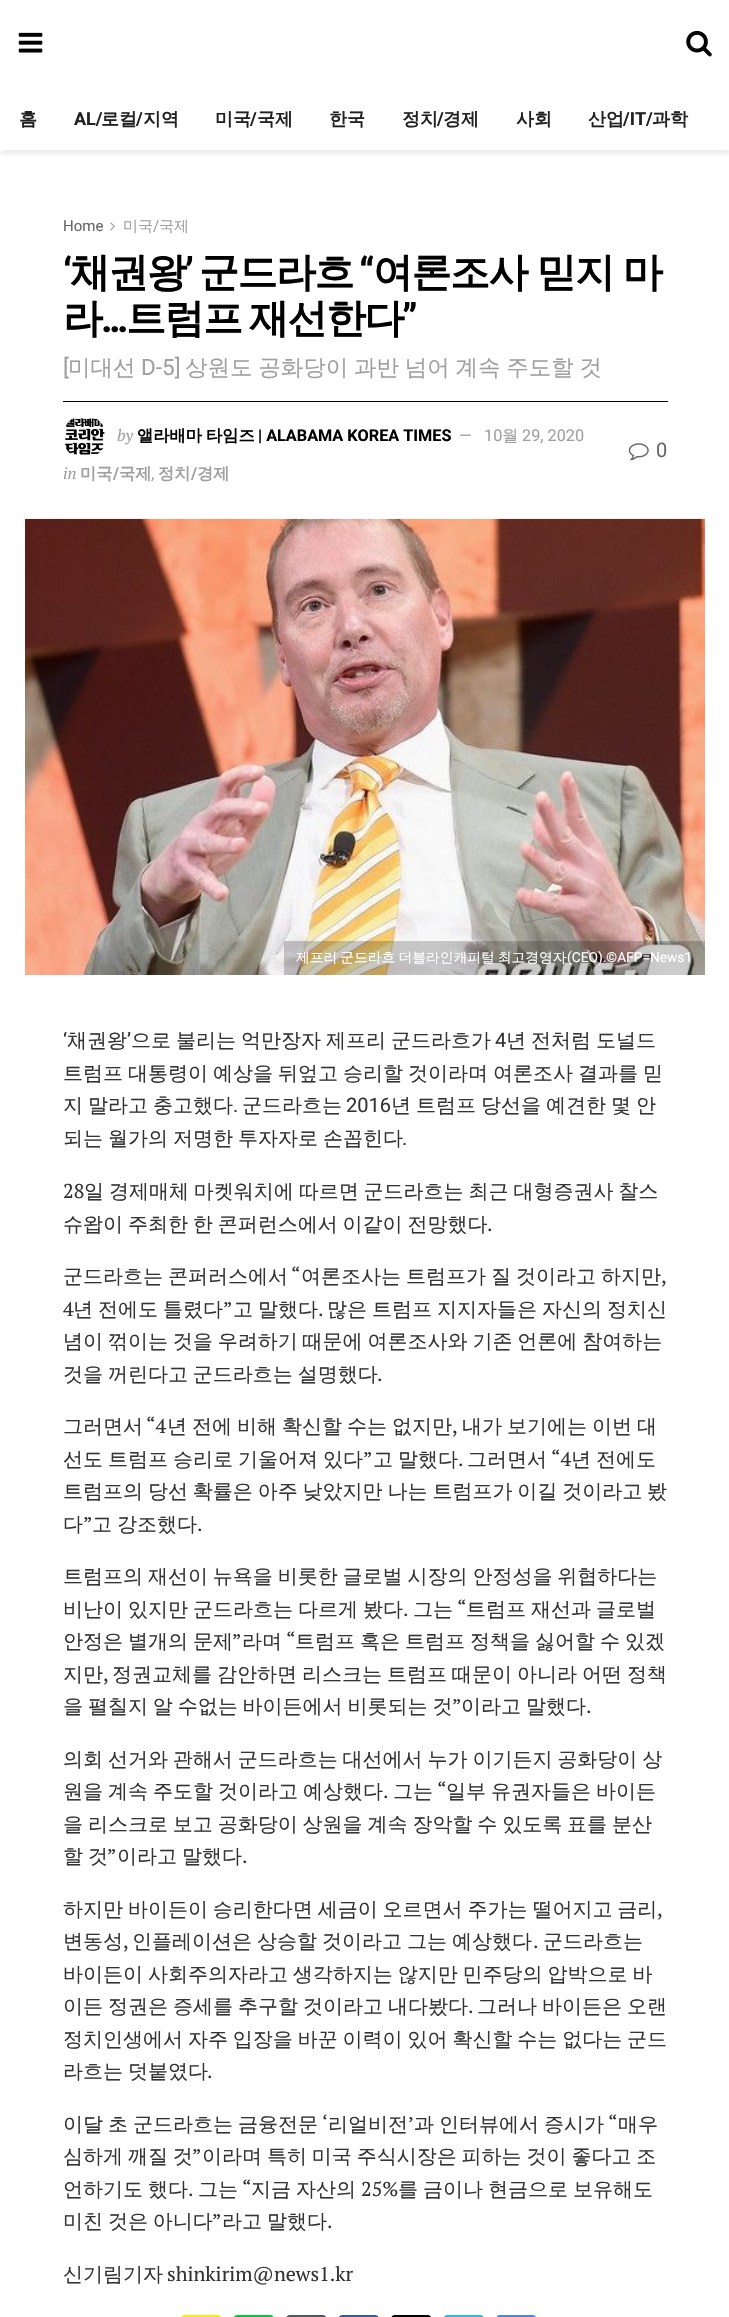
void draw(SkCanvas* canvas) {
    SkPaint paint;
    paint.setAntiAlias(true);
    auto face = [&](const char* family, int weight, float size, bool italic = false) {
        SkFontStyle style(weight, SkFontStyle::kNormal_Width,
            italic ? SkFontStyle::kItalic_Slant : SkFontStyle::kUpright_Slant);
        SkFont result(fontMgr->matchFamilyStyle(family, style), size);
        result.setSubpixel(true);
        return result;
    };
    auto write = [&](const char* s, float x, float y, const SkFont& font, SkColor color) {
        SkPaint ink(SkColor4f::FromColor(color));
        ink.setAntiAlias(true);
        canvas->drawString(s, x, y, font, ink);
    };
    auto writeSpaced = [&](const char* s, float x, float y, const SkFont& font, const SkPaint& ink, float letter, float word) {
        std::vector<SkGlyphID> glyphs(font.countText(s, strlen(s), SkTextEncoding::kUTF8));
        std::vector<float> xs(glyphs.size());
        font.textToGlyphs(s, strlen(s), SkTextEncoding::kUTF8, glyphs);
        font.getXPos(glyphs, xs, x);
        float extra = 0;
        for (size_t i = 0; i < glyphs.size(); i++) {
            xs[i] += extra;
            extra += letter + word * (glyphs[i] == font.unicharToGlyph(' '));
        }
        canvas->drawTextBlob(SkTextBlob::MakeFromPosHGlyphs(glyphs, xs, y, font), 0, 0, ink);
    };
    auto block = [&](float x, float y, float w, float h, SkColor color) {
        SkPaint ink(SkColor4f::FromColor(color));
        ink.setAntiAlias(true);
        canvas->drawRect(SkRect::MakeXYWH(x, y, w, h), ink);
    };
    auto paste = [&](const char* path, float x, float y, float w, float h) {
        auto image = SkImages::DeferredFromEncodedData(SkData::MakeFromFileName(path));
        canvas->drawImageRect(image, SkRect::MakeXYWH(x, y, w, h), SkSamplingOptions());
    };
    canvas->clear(SK_ColorWHITE);
    canvas->save();
    canvas->clipRect(SkRect::MakeXYWH(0, 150, 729, 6));
    paint.setColor(SkColorSetARGB(26, 0, 0, 0));
    paint.setMaskFilter(SkMaskFilter::MakeBlur(kNormal_SkBlurStyle, 4));
    canvas->drawRect(SkRect::MakeXYWH(0, 3, 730, 150), paint);
    paint.setMaskFilter(nullptr);
    canvas->restore();
    paste("pic1.png", 18, 32, 25, 21);
    paste("pic2.png", 686, 30, 26, 27);
    auto kFont1 = face("WenQuanYi Zen Hei", 700, 18);
    write("홈", 19, 125, kFont1, SkColorSetRGB(33, 33, 33));
    auto kFont2 = face("Roboto", 700, 18);
    write("AL/", 74, 125, kFont2, SkColorSetRGB(33, 33, 33));
    write("로컬", 101, 125, kFont1, SkColorSetRGB(33, 33, 33));
    write("/", 136, 125, kFont2, SkColorSetRGB(33, 33, 33));
    write("지역", 143, 125, kFont1, SkColorSetRGB(33, 33, 33));
    write("미국", 215, 125, kFont1, SkColorSetRGB(33, 33, 33));
    write("/", 250, 125, kFont2, SkColorSetRGB(33, 33, 33));
    write("국제", 257, 125, kFont1, SkColorSetRGB(33, 33, 33));
    write("한국", 329, 125, kFont1, SkColorSetRGB(33, 33, 33));
    write("정치", 402, 125, kFont1, SkColorSetRGB(33, 33, 33));
    write("/", 437, 125, kFont2, SkColorSetRGB(33, 33, 33));
    write("경제", 443, 125, kFont1, SkColorSetRGB(33, 33, 33));
    write("사회", 516, 125, kFont1, SkColorSetRGB(33, 33, 33));
    write("산업", 588, 125, kFont1, SkColorSetRGB(33, 33, 33));
    write("/IT/", 623, 125, kFont2, SkColorSetRGB(33, 33, 33));
    write("과학", 652, 125, kFont1, SkColorSetRGB(33, 33, 33));
    auto kFont3 = face("Roboto", 400, 15);
    write("Home", 63, 231, kFont3, SkColorSetRGB(102, 102, 102));
    paste("pic3.png", 110, 222, 5, 9);
    auto kFont4 = face("WenQuanYi Zen Hei", 500, 15);
    write("미국", 123, 231, kFont4, SkColorSetRGB(160, 160, 160));
    write("/", 153, 231, kFont3, SkColorSetRGB(160, 160, 160));
    write("국제", 159, 231, kFont4, SkColorSetRGB(160, 160, 160));
    auto kFont5 = face("Roboto Condensed", 700, 40);
    paint.setColor(SK_ColorBLACK);
    writeSpaced("‘", 63, 286, kFont5, paint, -1.5f, 0);
    auto kFont6 = face("WenQuanYi Zen Hei", 700, 40);
    writeSpaced("채권왕", 70, 286, kFont6, paint, -1.5f, 0);
    writeSpaced("’", 185, 286, kFont5, paint, -1.5f, 0);
    writeSpaced("군드라흐", 199, 286, kFont6, paint, -1.5f, 0);
    writeSpaced("“", 359, 286, kFont5, paint, -1.5f, 0);
    writeSpaced("여론조사 믿지 마", 373, 286, kFont6, paint, -1.5f, -1);
    writeSpaced("라", 63, 332, kFont6, paint, -1.5f, 0);
    writeSpaced("트럼프 재선한다", 126, 332, kFont6, paint, -1.5f, -3);
    writeSpaced("”", 402, 332, kFont5, paint, -1.5f, 0);
    writeSpaced("…", 101, 332, kFont5, paint, -1.5f, 0);
    auto kFont7 = face("Roboto", 400, 22.5f);
    write("[", 63, 375, kFont7, SkColorSetRGB(160, 160, 160));
    auto kFont8 = face("WenQuanYi Zen Hei", 500, 22.5f);
    write("미대선", 68, 375, kFont8, SkColorSetRGB(160, 160, 160));
    write("D-5]", 141, 375, kFont7, SkColorSetRGB(160, 160, 160));
    paint.setColor(SkColorSetRGB(160, 160, 160));
    writeSpaced("상원도 공화당이 과반 넘어 계속 주도할 것", 185, 375, kFont8, paint, 0, -1);
    block(63, 401, 605, 1, SK_ColorBLACK);
    paste("pic4.png", 65, 418, 40, 37);
    auto kFont9 = face("PT Serif", 400, 16.25f, true);
    write("by", 117, 441, kFont9, SkColorSetRGB(160, 160, 160));
    auto kFont10 = face("WenQuanYi Zen Hei", 700, 16.25f);
    write("앨라배마", 137, 441, kFont10, SK_ColorBLACK);
    write("타임즈", 206, 441, kFont10, SK_ColorBLACK);
    auto kFont11 = face("Roboto", 700, 16.25f);
    write("| ALABAMA KOREA TIMES", 258, 441, kFont11, SK_ColorBLACK);
    auto kFont12 = face("Roboto", 400, 16.25f);
    write("—", 459, 441, kFont12, SkColorSetRGB(160, 160, 160));
    write("10", 484, 441, kFont12, SkColorSetRGB(160, 160, 160));
    auto kFont13 = face("WenQuanYi Zen Hei", 500, 16.25f);
    write("월", 502, 441, kFont13, SkColorSetRGB(160, 160, 160));
    write("29, 2020", 522, 441, kFont12, SkColorSetRGB(160, 160, 160));
    write("in", 63, 479, kFont9, SkColorSetRGB(160, 160, 160));
    write("미국", 80, 479, kFont10, SkColorSetRGB(160, 160, 160));
    write("/", 113, 479, kFont11, SkColorSetRGB(160, 160, 160));
    write("국제", 119, 479, kFont10, SkColorSetRGB(160, 160, 160));
    write(",", 151, 479, kFont12, SkColorSetRGB(160, 160, 160));
    write("정치", 158, 479, kFont10, SkColorSetRGB(160, 160, 160));
    write("/", 191, 479, kFont11, SkColorSetRGB(160, 160, 160));
    write("경제", 197, 479, kFont10, SkColorSetRGB(160, 160, 160));
    paste("pic5.png", 628, 443, 21, 18);
    auto kFont14 = face("Roboto", 400, 20);
    write("0", 656, 457, kFont14, SkColorSetRGB(102, 102, 102));
    paste("pic6.png", 25, 518, 680, 457);
    block(284, 941, 421, 34, SkColorSetARGB(51, 0, 0, 0));
    auto kFont15 = face("WenQuanYi Zen Hei", 500, 13.75f);
    paint.setColor(SK_ColorWHITE);
    writeSpaced("제프리 군드라흐 더블라인캐피털 최고경영자", 296, 962, kFont15, paint, 0, -1);
    auto kFont16 = face("Roboto", 400, 13.75f);
    write("(CEO).©AFP=News1", 567, 962, kFont16, SK_ColorWHITE);
    write("‘", 63, 1047, kFont14, SkColorSetRGB(51, 51, 51));
    auto kFont17 = face("WenQuanYi Zen Hei", 500, 20);
    write("채권왕", 67, 1047, kFont17, SkColorSetRGB(51, 51, 51));
    write("’", 127, 1047, kFont14, SkColorSetRGB(51, 51, 51));
    paint.setColor(SkColorSetRGB(51, 51, 51));
    writeSpaced("으로 불리는 억만장자 제프리 군드라흐가", 131, 1047, kFont17, paint, 0, -1);
    write("4", 495, 1047, kFont14, SkColorSetRGB(51, 51, 51));
    writeSpaced("년 전처럼 도널드", 506, 1047, kFont17, paint, 0, -1);
    writeSpaced("트럼프 대통령이 예상을 뒤엎고 승리할 것이라며 여론조사 결과를 믿", 63, 1080, kFont17, paint, 0, -1);
    writeSpaced("지 말라고 충고했다", 63, 1112, kFont17, paint, 0, -1);
    write(".", 233, 1112, kFont14, SkColorSetRGB(51, 51, 51));
    write("군드라흐는", 242, 1112, kFont17, SkColorSetRGB(51, 51, 51));
    write("2016", 346, 1112, kFont14, SkColorSetRGB(51, 51, 51));
    writeSpaced("년 트럼프 당선을 예견한 몇 안", 391, 1112, kFont17, paint, 0, -1);
    writeSpaced("되는 월가의 저명한 투자자로 손꼽힌다", 63, 1145, kFont17, paint, 0, -1);
    write(".", 402, 1145, kFont14, SkColorSetRGB(51, 51, 51));
    auto kFont18 = face("PT Serif", 400, 20);
    write("28", 63, 1198, kFont18, SkColorSetRGB(51, 51, 51));
    writeSpaced("일 경제매체 마켓워치에 따르면 군드라흐는 최근 대형증권사 찰스", 84, 1198, kFont17, paint, 0, -1.1f);
    writeSpaced("슈왑이 주최한 한 콘퍼런스에서 이같이 전망했다", 63, 1231, kFont17, paint, 0, -1.1f);
    write(".", 487, 1231, kFont18, SkColorSetRGB(51, 51, 51));
    writeSpaced("군드라흐는 콘퍼러스에서", 63, 1283, kFont17, paint, 0, -1);
    write("“", 291, 1283, kFont18, SkColorSetRGB(51, 51, 51));
    writeSpaced("여론조사는 트럼프가 질 것이라고 하지만", 301, 1283, kFont17, paint, 0, -1);
    write(",", 661, 1283, kFont18, SkColorSetRGB(51, 51, 51));
    write("4", 63, 1316, kFont18, SkColorSetRGB(51, 51, 51));
    writeSpaced("년 전에도 틀렸다", 73, 1316, kFont17, paint, 0, -1);
    write("”", 223, 1316, kFont18, SkColorSetRGB(51, 51, 51));
    writeSpaced("고 말했다", 233, 1316, kFont17, paint, 0, -1);
    writeSpaced("많은 트럼프 지지자들은 자신의 정치신", 327, 1316, kFont17, paint, 0, -1);
    write(".", 318, 1316, kFont18, SkColorSetRGB(51, 51, 51));
    writeSpaced("념이 꺾이는 것을 우려하기 때문에 여론조사와 기존 언론에 참여하는", 63, 1348, kFont17, paint, 0, -1.1f);
    writeSpaced("것을 꺼린다고 군드라흐는 설명했다", 63, 1381, kFont17, paint, 0, -1.1f);
    write(".", 377, 1381, kFont18, SkColorSetRGB(51, 51, 51));
    write("그러면서", 63, 1433, kFont17, SkColorSetRGB(51, 51, 51));
    write("“4", 146, 1433, kFont18, SkColorSetRGB(51, 51, 51));
    writeSpaced("년 전에 비해 확신할 수는 없지만", 167, 1433, kFont17, paint, 0, -1);
    write(",", 452, 1433, kFont18, SkColorSetRGB(51, 51, 51));
    writeSpaced("내가 보기에는 이번 대", 462, 1433, kFont17, paint, 0, -1);
    writeSpaced("선도 트럼프 승리로 기울어져 있다", 63, 1466, kFont17, paint, 0, -1);
    write("”", 363, 1466, kFont18, SkColorSetRGB(51, 51, 51));
    writeSpaced("고 말했다", 373, 1466, kFont17, paint, 0, -1);
    write("그러면서", 467, 1466, kFont17, SkColorSetRGB(51, 51, 51));
    write("“4", 551, 1466, kFont18, SkColorSetRGB(51, 51, 51));
    writeSpaced("년 전에도", 571, 1466, kFont17, paint, 0, -1);
    write(".", 458, 1466, kFont18, SkColorSetRGB(51, 51, 51));
    writeSpaced("트럼프의 당선 확률은 아주 낮았지만 나는 트럼프가 이길 것이라고 봤", 63, 1498, kFont17, paint, 0, -1.1f);
    write("다", 63, 1531, kFont17, SkColorSetRGB(51, 51, 51));
    write("”", 83, 1531, kFont18, SkColorSetRGB(51, 51, 51));
    writeSpaced("고 강조했다", 92, 1531, kFont17, paint, 0, -1.1f);
    write(".", 197, 1531, kFont18, SkColorSetRGB(51, 51, 51));
    writeSpaced("트럼프의 재선이 뉴욕을 비롯한 글로벌 시장의 안정성을 위협하다는", 63, 1583, kFont17, paint, 0, -1.1f);
    writeSpaced("비난이 있지만 군드라흐는 다르게 봤다", 63, 1616, kFont17, paint, 0, -1);
    write(".", 403, 1616, kFont18, SkColorSetRGB(51, 51, 51));
    write("그는", 413, 1616, kFont17, SkColorSetRGB(51, 51, 51));
    write("“", 457, 1616, kFont18, SkColorSetRGB(51, 51, 51));
    writeSpaced("트럼프 재선과 글로벌", 466, 1616, kFont17, paint, 0, -1);
    writeSpaced("안정은 별개의 문제", 63, 1648, kFont17, paint, 0, -1);
    write("”", 232, 1648, kFont18, SkColorSetRGB(51, 51, 51));
    write("라며", 242, 1648, kFont17, SkColorSetRGB(51, 51, 51));
    write("“", 286, 1648, kFont18, SkColorSetRGB(51, 51, 51));
    writeSpaced("트럼프 혹은 트럼프 정책을 싫어할 수 있겠", 295, 1648, kFont17, paint, 0, -1);
    write("지만", 63, 1681, kFont17, SkColorSetRGB(51, 51, 51));
    write(",", 103, 1681, kFont18, SkColorSetRGB(51, 51, 51));
    writeSpaced("정권교체를 감안하면 리스크는 트럼프 때문이 아니라 어떤 정책", 112, 1681, kFont17, paint, 0, -1);
    writeSpaced("을 펼칠지 알 수없는 바이든에서 비롯되는 것", 63, 1713, kFont17, paint, 0, -1.1f);
    write("”", 452, 1713, kFont18, SkColorSetRGB(51, 51, 51));
    writeSpaced("이라고 말했다", 461, 1713, kFont17, paint, 0, -1.1f);
    write(".", 586, 1713, kFont18, SkColorSetRGB(51, 51, 51));
    writeSpaced("의회 선거와 관해서 군드라흐는 대선에서 누가 이기든지 공화당이 상", 63, 1766, kFont17, paint, 0, -1.1f);
    writeSpaced("원을 계속 주도할 것이라고 예상했다", 63, 1798, kFont17, paint, 0, -1);
    write(".", 383, 1798, kFont18, SkColorSetRGB(51, 51, 51));
    write("그는", 393, 1798, kFont17, SkColorSetRGB(51, 51, 51));
    write("“", 437, 1798, kFont18, SkColorSetRGB(51, 51, 51));
    writeSpaced("일부 유권자들은 바이든", 446, 1798, kFont17, paint, 0, -1);
    writeSpaced("을 리스크로 보고 공화당이 상원을 계속 장악할 수 있도록 표를 분산", 63, 1831, kFont17, paint, 0, -1.1f);
    writeSpaced("할 것", 63, 1863, kFont17, paint, 0, -1.1f);
    write("”", 107, 1863, kFont18, SkColorSetRGB(51, 51, 51));
    writeSpaced("이라고 말했다", 117, 1863, kFont17, paint, 0, -1.1f);
    write(".", 242, 1863, kFont18, SkColorSetRGB(51, 51, 51));
    writeSpaced("하지만 바이든이 승리한다면 세금이 오르면서 주가는 떨어지고 금리", 63, 1916, kFont17, paint, 0, -1.1f);
    write(",", 657, 1916, kFont18, SkColorSetRGB(51, 51, 51));
    write("변동성", 63, 1948, kFont17, SkColorSetRGB(51, 51, 51));
    write(",", 123, 1948, kFont18, SkColorSetRGB(51, 51, 51));
    writeSpaced("인플레이션은 상승할 것이라고 그는 예상했다", 132, 1948, kFont17, paint, 0, -1);
    write(".", 533, 1948, kFont18, SkColorSetRGB(51, 51, 51));
    write("군드라흐는", 543, 1948, kFont17, SkColorSetRGB(51, 51, 51));
    writeSpaced("바이든이 사회주의자라고 생각하지는 않지만 민주당의 압박으로 바", 63, 1981, kFont17, paint, 0, -1.1f);
    writeSpaced("이든 정권은 증세를 추구할 것이라고 내다봤다", 63, 2013, kFont17, paint, 0, -1);
    write(".", 468, 2013, kFont18, SkColorSetRGB(51, 51, 51));
    writeSpaced("그러나 바이든은 오랜", 477, 2013, kFont17, paint, 0, -1);
    writeSpaced("정치인생에서 자주 입장을 바꾼 이력이 있어 확신할 수는 없다는 군드", 63, 2046, kFont17, paint, 0, -1.1f);
    writeSpaced("라흐는 덧붙였다", 63, 2078, kFont17, paint, 0, -1.1f);
    write(".", 207, 2078, kFont18, SkColorSetRGB(51, 51, 51));
    writeSpaced("이달 초 군드라흐는 금융전문", 63, 2131, kFont17, paint, 0, -1);
    write("‘", 322, 2131, kFont18, SkColorSetRGB(51, 51, 51));
    write("리얼비전", 328, 2131, kFont17, SkColorSetRGB(51, 51, 51));
    write("’", 408, 2131, kFont18, SkColorSetRGB(51, 51, 51));
    writeSpaced("과 인터뷰에서 증시가", 414, 2131, kFont17, paint, 0, -1);
    write("“", 608, 2131, kFont18, SkColorSetRGB(51, 51, 51));
    write("매우", 618, 2131, kFont17, SkColorSetRGB(51, 51, 51));
    writeSpaced("심하게 깨질 것", 63, 2163, kFont17, paint, 0, -1.1f);
    write("”", 192, 2163, kFont18, SkColorSetRGB(51, 51, 51));
    writeSpaced("이라며 특히 미국 주식시장은 피하는 것이 좋다고 조", 202, 2163, kFont17, paint, 0, -1.1f);
    writeSpaced("언하기도 했다", 63, 2196, kFont17, paint, 0, -1);
    write(".", 188, 2196, kFont18, SkColorSetRGB(51, 51, 51));
    write("그는", 198, 2196, kFont17, SkColorSetRGB(51, 51, 51));
    write("“", 242, 2196, kFont18, SkColorSetRGB(51, 51, 51));
    writeSpaced("지금 자산의", 251, 2196, kFont17, paint, 0, -1);
    write("25%", 361, 2196, kFont18, SkColorSetRGB(51, 51, 51));
    writeSpaced("를 금이나 현금으로 보유해도", 398, 2196, kFont17, paint, 0, -1);
    writeSpaced("미친 것은 아니다", 63, 2228, kFont17, paint, 0, -1.1f);
    write("”", 212, 2228, kFont18, SkColorSetRGB(51, 51, 51));
    writeSpaced("라고 말했다", 222, 2228, kFont17, paint, 0, -1.1f);
    write(".", 327, 2228, kFont18, SkColorSetRGB(51, 51, 51));
    write("신기림기자", 63, 2281, kFont17, SkColorSetRGB(51, 51, 51));
    write("shinkirim@news1.kr", 167, 2281, kFont18, SkColorSetRGB(51, 51, 51));
    paste("pic7.png", 181, 2315, 40, 2);
    paste("pic8.png", 234, 2315, 40, 2);
    paste("pic9.png", 286, 2315, 40, 2);
    paste("pic10.png", 339, 2315, 40, 2);
    paste("pic11.png", 391, 2315, 40, 2);
    paste("pic12.png", 444, 2315, 40, 2);
    paste("pic13.png", 496, 2315, 40, 2);
}
